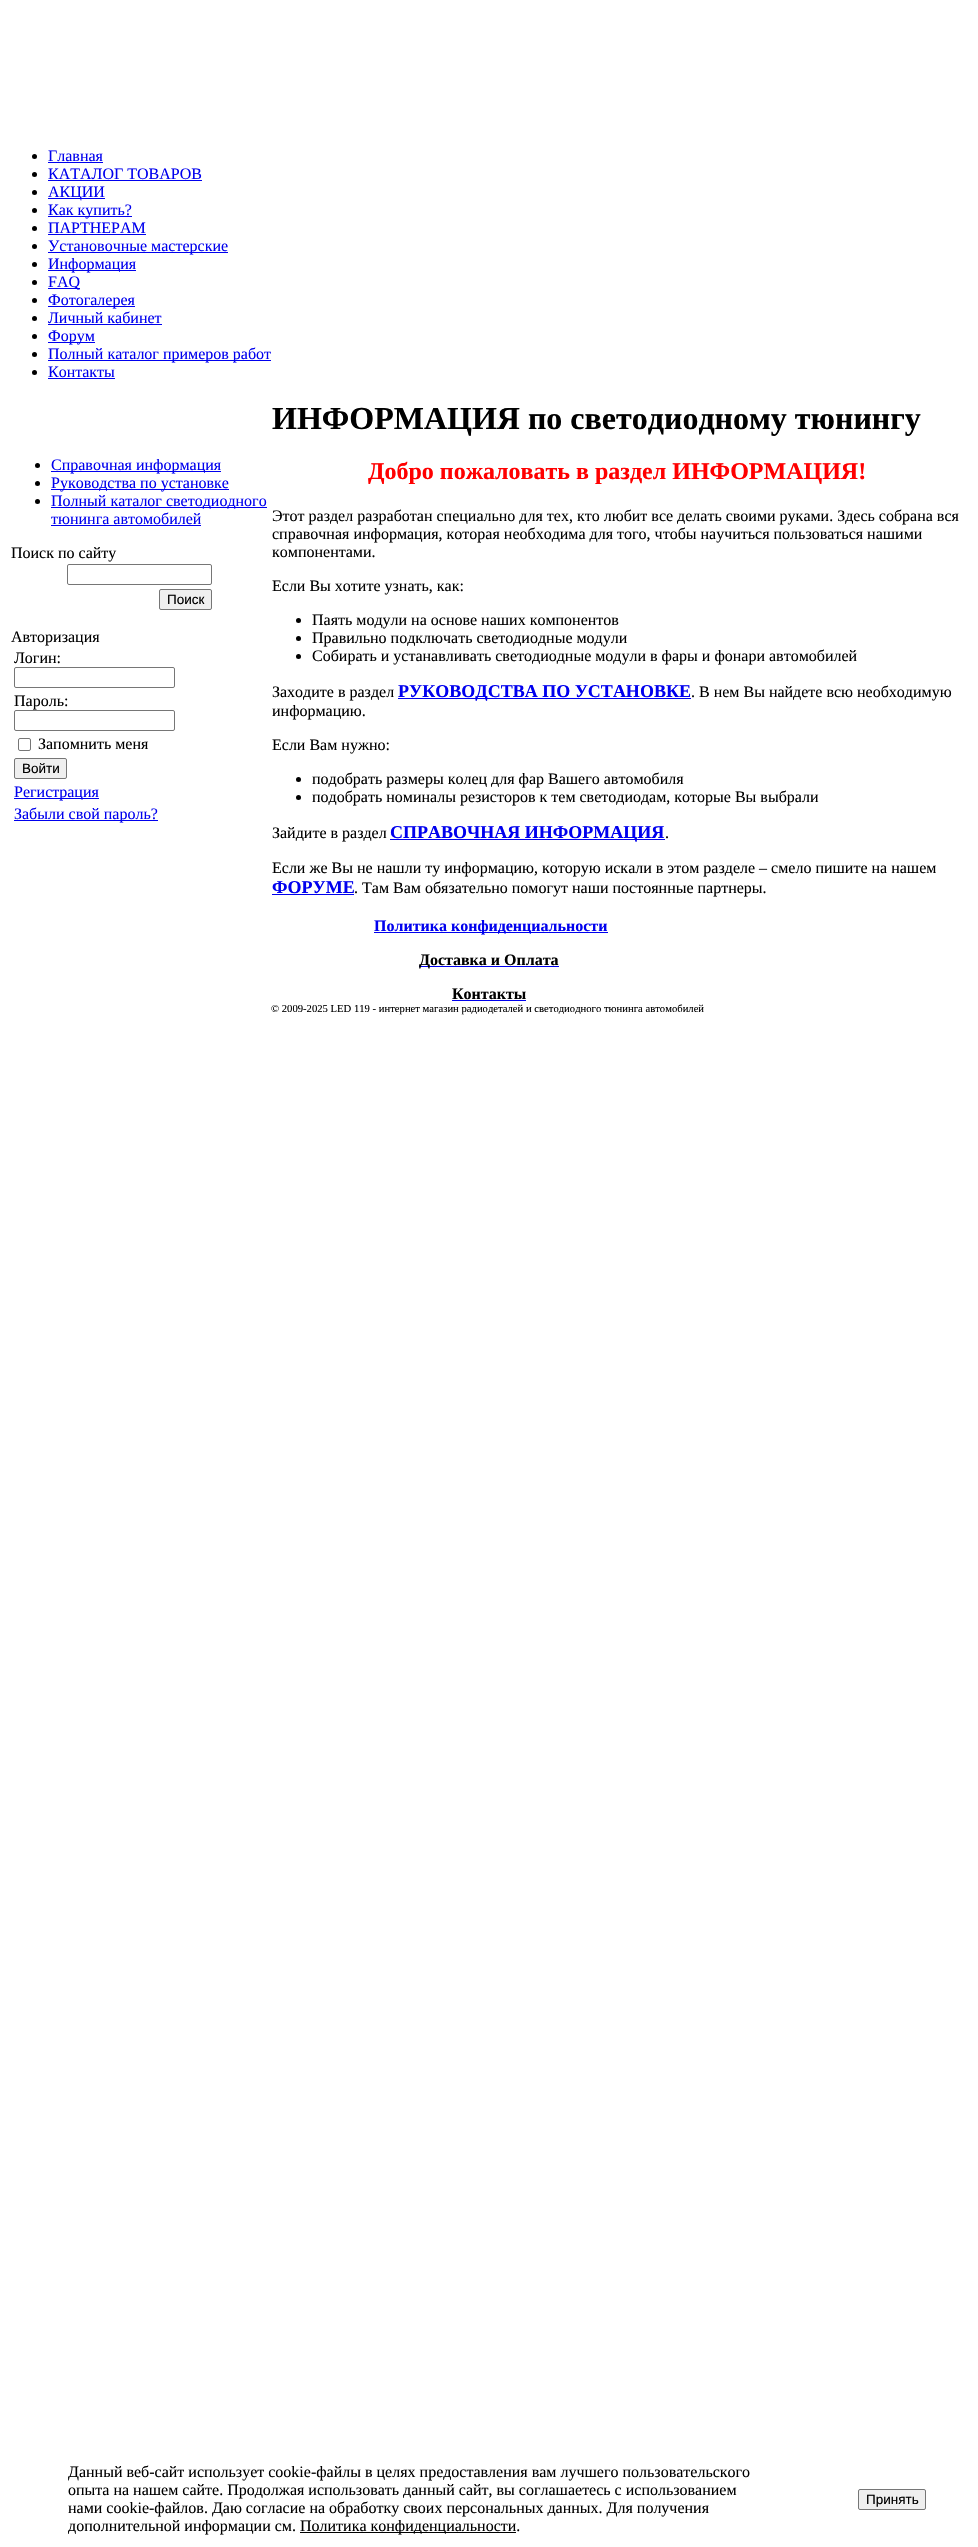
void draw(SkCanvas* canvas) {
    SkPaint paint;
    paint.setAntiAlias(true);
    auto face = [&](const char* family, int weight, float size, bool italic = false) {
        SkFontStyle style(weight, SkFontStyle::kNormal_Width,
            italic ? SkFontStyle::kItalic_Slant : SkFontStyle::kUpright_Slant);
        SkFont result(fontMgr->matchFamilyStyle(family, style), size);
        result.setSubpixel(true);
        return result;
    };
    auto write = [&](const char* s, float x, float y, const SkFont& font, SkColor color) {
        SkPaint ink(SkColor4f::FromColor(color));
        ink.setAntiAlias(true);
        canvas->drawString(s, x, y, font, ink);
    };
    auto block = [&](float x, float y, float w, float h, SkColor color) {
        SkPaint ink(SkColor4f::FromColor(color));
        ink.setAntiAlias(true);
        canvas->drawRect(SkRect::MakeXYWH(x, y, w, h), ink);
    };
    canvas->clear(SK_ColorWHITE);
    paint.setColor(SK_ColorBLACK);
    canvas->drawCircle(34.5f, 156.5f, 2.5f, paint);
    auto kFont1 = face("Liberation Serif", 400, 16);
    write("Главная", 48, 161, kFont1, SkColorSetRGB(0, 0, 238));
    block(48, 162, 55, 1, SkColorSetRGB(0, 0, 238));
    canvas->drawCircle(34.5f, 174.5f, 2.5f, paint);
    write("КАТАЛОГ ТОВАРОВ", 48, 179, kFont1, SkColorSetRGB(0, 0, 238));
    block(48, 180, 154, 1, SkColorSetRGB(0, 0, 238));
    canvas->drawCircle(34.5f, 192.5f, 2.5f, paint);
    block(48, 198, 57, 1, SkColorSetRGB(0, 0, 238));
    write("АКЦИИ", 48, 197, kFont1, SkColorSetRGB(0, 0, 238));
    canvas->drawCircle(34.5f, 210.5f, 2.5f, paint);
    block(48, 216, 84, 1, SkColorSetRGB(0, 0, 238));
    write("Как купить?", 48, 215, kFont1, SkColorSetRGB(0, 0, 238));
    canvas->drawCircle(34.5f, 228.5f, 2.5f, paint);
    write("ПАРТНЕРАМ", 48, 233, kFont1, SkColorSetRGB(0, 0, 238));
    block(48, 234, 98, 1, SkColorSetRGB(0, 0, 238));
    canvas->drawCircle(34.5f, 246.5f, 2.5f, paint);
    block(48, 252, 180, 1, SkColorSetRGB(0, 0, 238));
    write("Установочные мастерские", 48, 251, kFont1, SkColorSetRGB(0, 0, 238));
    canvas->drawCircle(34.5f, 264.5f, 2.5f, paint);
    block(48, 270, 88, 1, SkColorSetRGB(0, 0, 238));
    write("Информация", 48, 269, kFont1, SkColorSetRGB(0, 0, 238));
    canvas->drawCircle(34.5f, 282.5f, 2.5f, paint);
    block(48, 288, 32, 1, SkColorSetRGB(0, 0, 238));
    write("FAQ", 48, 287, kFont1, SkColorSetRGB(0, 0, 238));
    canvas->drawCircle(34.5f, 300.5f, 2.5f, paint);
    block(48, 306, 87, 1, SkColorSetRGB(0, 0, 238));
    write("Фотогалерея", 48, 305, kFont1, SkColorSetRGB(0, 0, 238));
    canvas->drawCircle(34.5f, 318.5f, 2.5f, paint);
    write("Личный кабинет", 48, 323, kFont1, SkColorSetRGB(0, 0, 238));
    block(48, 324, 114, 1, SkColorSetRGB(0, 0, 238));
    canvas->drawCircle(34.5f, 336.5f, 2.5f, paint);
    block(48, 342, 47, 1, SkColorSetRGB(0, 0, 238));
    write("Форум", 48, 341, kFont1, SkColorSetRGB(0, 0, 238));
    canvas->drawCircle(34.5f, 354.5f, 2.5f, paint);
    block(48, 360, 223, 1, SkColorSetRGB(0, 0, 238));
    write("Полный каталог примеров работ", 48, 359, kFont1, SkColorSetRGB(0, 0, 238));
    canvas->drawCircle(34.5f, 372.5f, 2.5f, paint);
    write("Контакты", 48, 377, kFont1, SkColorSetRGB(0, 0, 238));
    block(48, 378, 67, 1, SkColorSetRGB(0, 0, 238));
    canvas->drawCircle(37.5f, 465.5f, 2.5f, paint);
    block(51, 471, 170, 1, SkColorSetRGB(0, 0, 238));
    write("Справочная информация", 51, 470, kFont1, SkColorSetRGB(0, 0, 238));
    canvas->drawCircle(37.5f, 483.5f, 2.5f, paint);
    block(51, 489, 178, 1, SkColorSetRGB(0, 0, 238));
    write("Руководства по установке", 51, 488, kFont1, SkColorSetRGB(0, 0, 238));
    canvas->drawCircle(37.5f, 501.5f, 2.5f, paint);
    block(51, 507, 216, 1, SkColorSetRGB(0, 0, 238));
    write("Полный каталог светодиодного", 51, 506, kFont1, SkColorSetRGB(0, 0, 238));
    write("тюнинга автомобилей", 51, 524, kFont1, SkColorSetRGB(0, 0, 238));
    block(51, 525, 150, 1, SkColorSetRGB(0, 0, 238));
    write("Поиск по сайту", 11, 558, kFont1, SK_ColorBLACK);
    paint.setStyle(SkPaint::kStroke_Style);
    paint.setStrokeWidth(1);
    paint.setColor(SkColorSetRGB(118, 118, 118));
    canvas->drawRoundRect(SkRect::MakeXYWH(67.5f, 564.5f, 144, 20), 1.5f, 1.5f, paint);
    paint.setStyle(SkPaint::kFill_Style);
    paint.setColor(SkColorSetRGB(239, 239, 239));
    canvas->drawRoundRect(SkRect::MakeXYWH(159.5f, 589.5f, 52, 20), 1.5f, 1.5f, paint);
    paint.setStyle(SkPaint::kStroke_Style);
    paint.setColor(SkColorSetRGB(118, 118, 118));
    canvas->drawRoundRect(SkRect::MakeXYWH(159.5f, 589.5f, 52, 20), 1.5f, 1.5f, paint);
    auto kFont2 = face("Liberation Sans", 400, 13.5f);
    write("Поиск", 167, 604, kFont2, SK_ColorBLACK);
    write("Авторизация", 11, 642, kFont1, SK_ColorBLACK);
    write("Логин:", 14, 663, kFont1, SK_ColorBLACK);
    canvas->drawRoundRect(SkRect::MakeXYWH(14.5f, 667.5f, 160, 20), 1.5f, 1.5f, paint);
    write("Пароль:", 14, 706, kFont1, SK_ColorBLACK);
    canvas->drawRoundRect(SkRect::MakeXYWH(14.5f, 710.5f, 160, 20), 1.5f, 1.5f, paint);
    canvas->drawRoundRect(SkRect::MakeXYWH(18.5f, 738.5f, 12, 12), 1.5f, 1.5f, paint);
    write("Запомнить меня", 38, 749, kFont1, SK_ColorBLACK);
    paint.setStyle(SkPaint::kFill_Style);
    paint.setColor(SkColorSetRGB(239, 239, 239));
    canvas->drawRoundRect(SkRect::MakeXYWH(14.5f, 758.5f, 52, 20), 1.5f, 1.5f, paint);
    paint.setStyle(SkPaint::kStroke_Style);
    paint.setColor(SkColorSetRGB(118, 118, 118));
    canvas->drawRoundRect(SkRect::MakeXYWH(14.5f, 758.5f, 52, 20), 1.5f, 1.5f, paint);
    write("Войти", 22, 773, kFont2, SK_ColorBLACK);
    block(14, 798, 85, 1, SkColorSetRGB(0, 0, 238));
    write("Регистрация", 14, 797, kFont1, SkColorSetRGB(0, 0, 238));
    block(14, 820, 144, 1, SkColorSetRGB(0, 0, 238));
    write("Забыли свой пароль?", 14, 819, kFont1, SkColorSetRGB(0, 0, 238));
    auto kFont3 = face("Liberation Serif", 700, 32);
    write("ИНФОРМАЦИЯ по светодиодному тюнингу", 272, 429, kFont3, SK_ColorBLACK);
    auto kFont4 = face("Liberation Serif", 700, 24);
    write("Добро пожаловать в раздел ИНФОРМАЦИЯ!", 368, 479, kFont4, SkColorSetRGB(255, 0, 0));
    write("Этот раздел разработан специально для тех, кто любит все делать своими руками. Здесь собрана вся", 272, 521, kFont1, SK_ColorBLACK);
    write("справочная информация, которая необходима для того, чтобы научиться пользоваться нашими", 272, 539, kFont1, SK_ColorBLACK);
    write("компонентами.", 272, 557, kFont1, SK_ColorBLACK);
    write("Если Вы хотите узнать, как:", 272, 591, kFont1, SK_ColorBLACK);
    paint.setStyle(SkPaint::kFill_Style);
    paint.setColor(SK_ColorBLACK);
    canvas->drawCircle(298.5f, 620.5f, 2.5f, paint);
    write("Паять модули на основе наших компонентов", 312, 625, kFont1, SK_ColorBLACK);
    canvas->drawCircle(298.5f, 638.5f, 2.5f, paint);
    write("Правильно подключать светодиодные модули", 312, 643, kFont1, SK_ColorBLACK);
    canvas->drawCircle(298.5f, 656.5f, 2.5f, paint);
    write("Собирать и устанавливать светодиодные модули в фары и фонари автомобилей", 312, 661, kFont1, SK_ColorBLACK);
    write("Заходите в раздел", 272, 697, kFont1, SK_ColorBLACK);
    block(398, 698, 293, 1, SkColorSetRGB(0, 0, 238));
    auto kFont5 = face("Liberation Serif", 700, 18);
    write("РУКОВОДСТВА ПО УСТАНОВКЕ", 398, 697, kFont5, SkColorSetRGB(0, 0, 238));
    write(". В нем Вы найдете всю необходимую", 691, 697, kFont1, SK_ColorBLACK);
    write("информацию.", 272, 716, kFont1, SK_ColorBLACK);
    write("Если Вам нужно:", 272, 750, kFont1, SK_ColorBLACK);
    canvas->drawCircle(298.5f, 779.5f, 2.5f, paint);
    write("подобрать размеры колец для фар Вашего автомобиля", 312, 784, kFont1, SK_ColorBLACK);
    canvas->drawCircle(298.5f, 797.5f, 2.5f, paint);
    write("подобрать номиналы резисторов к тем светодиодам, которые Вы выбрали", 312, 802, kFont1, SK_ColorBLACK);
    write("Зайдите в раздел", 272, 838, kFont1, SK_ColorBLACK);
    block(390, 839, 275, 1, SkColorSetRGB(0, 0, 238));
    write("СПРАВОЧНАЯ ИНФОРМАЦИЯ", 390, 838, kFont5, SkColorSetRGB(0, 0, 238));
    write(".", 665, 838, kFont1, SK_ColorBLACK);
    write("Если же Вы не нашли ту информацию, которую искали в этом разделе – смело пишите на нашем", 272, 873, kFont1, SK_ColorBLACK);
    write("ФОРУМЕ", 272, 893, kFont5, SkColorSetRGB(0, 0, 238));
    block(272, 894, 82, 1, SkColorSetRGB(0, 0, 238));
    write(". Там Вам обязательно помогут наши постоянные партнеры.", 354, 893, kFont1, SK_ColorBLACK);
    block(374, 932, 234, 1, SkColorSetRGB(0, 0, 238));
    auto kFont6 = face("Liberation Serif", 700, 16);
    write("Политика конфиденциальности", 374, 931, kFont6, SkColorSetRGB(0, 0, 238));
    block(419, 966, 140, 1, SkColorSetRGB(0, 0, 238));
    write("Доставка и Оплата", 419, 965, kFont6, SK_ColorBLACK);
    write("Контакты", 452, 999, kFont6, SK_ColorBLACK);
    block(452, 1000, 74, 1, SkColorSetRGB(0, 0, 238));
    auto kFont7 = face("Liberation Serif", 400, 10.65f);
    write("© 2009-2025 LED 119 - интернет магазин радиодеталей и светодиодного тюнинга автомобилей", 271, 1012, kFont7, SK_ColorBLACK);
    write("Данный веб-сайт использует cookie-файлы в целях предоставления вам лучшего пользовательского", 68, 2477, kFont1, SK_ColorBLACK);
    write("опыта на нашем сайте. Продолжая использовать данный сайт, вы соглашаетесь с использованием", 68, 2495, kFont1, SK_ColorBLACK);
    write("нами cookie-файлов. Даю согласие на обработку своих персональных данных. Для получения", 68, 2513, kFont1, SK_ColorBLACK);
    write("дополнительной информации см.", 68, 2531, kFont1, SK_ColorBLACK);
    block(300, 2532, 216, 1, SK_ColorBLACK);
    write("Политика конфиденциальности.", 300, 2531, kFont1, SK_ColorBLACK);
    paint.setColor(SkColorSetRGB(239, 239, 239));
    canvas->drawRoundRect(SkRect::MakeXYWH(858.5f, 2489.5f, 67, 20), 1.5f, 1.5f, paint);
    paint.setStyle(SkPaint::kStroke_Style);
    paint.setColor(SkColorSetRGB(118, 118, 118));
    canvas->drawRoundRect(SkRect::MakeXYWH(858.5f, 2489.5f, 67, 20), 1.5f, 1.5f, paint);
    write("Принять", 866, 2504, kFont2, SK_ColorBLACK);
}
